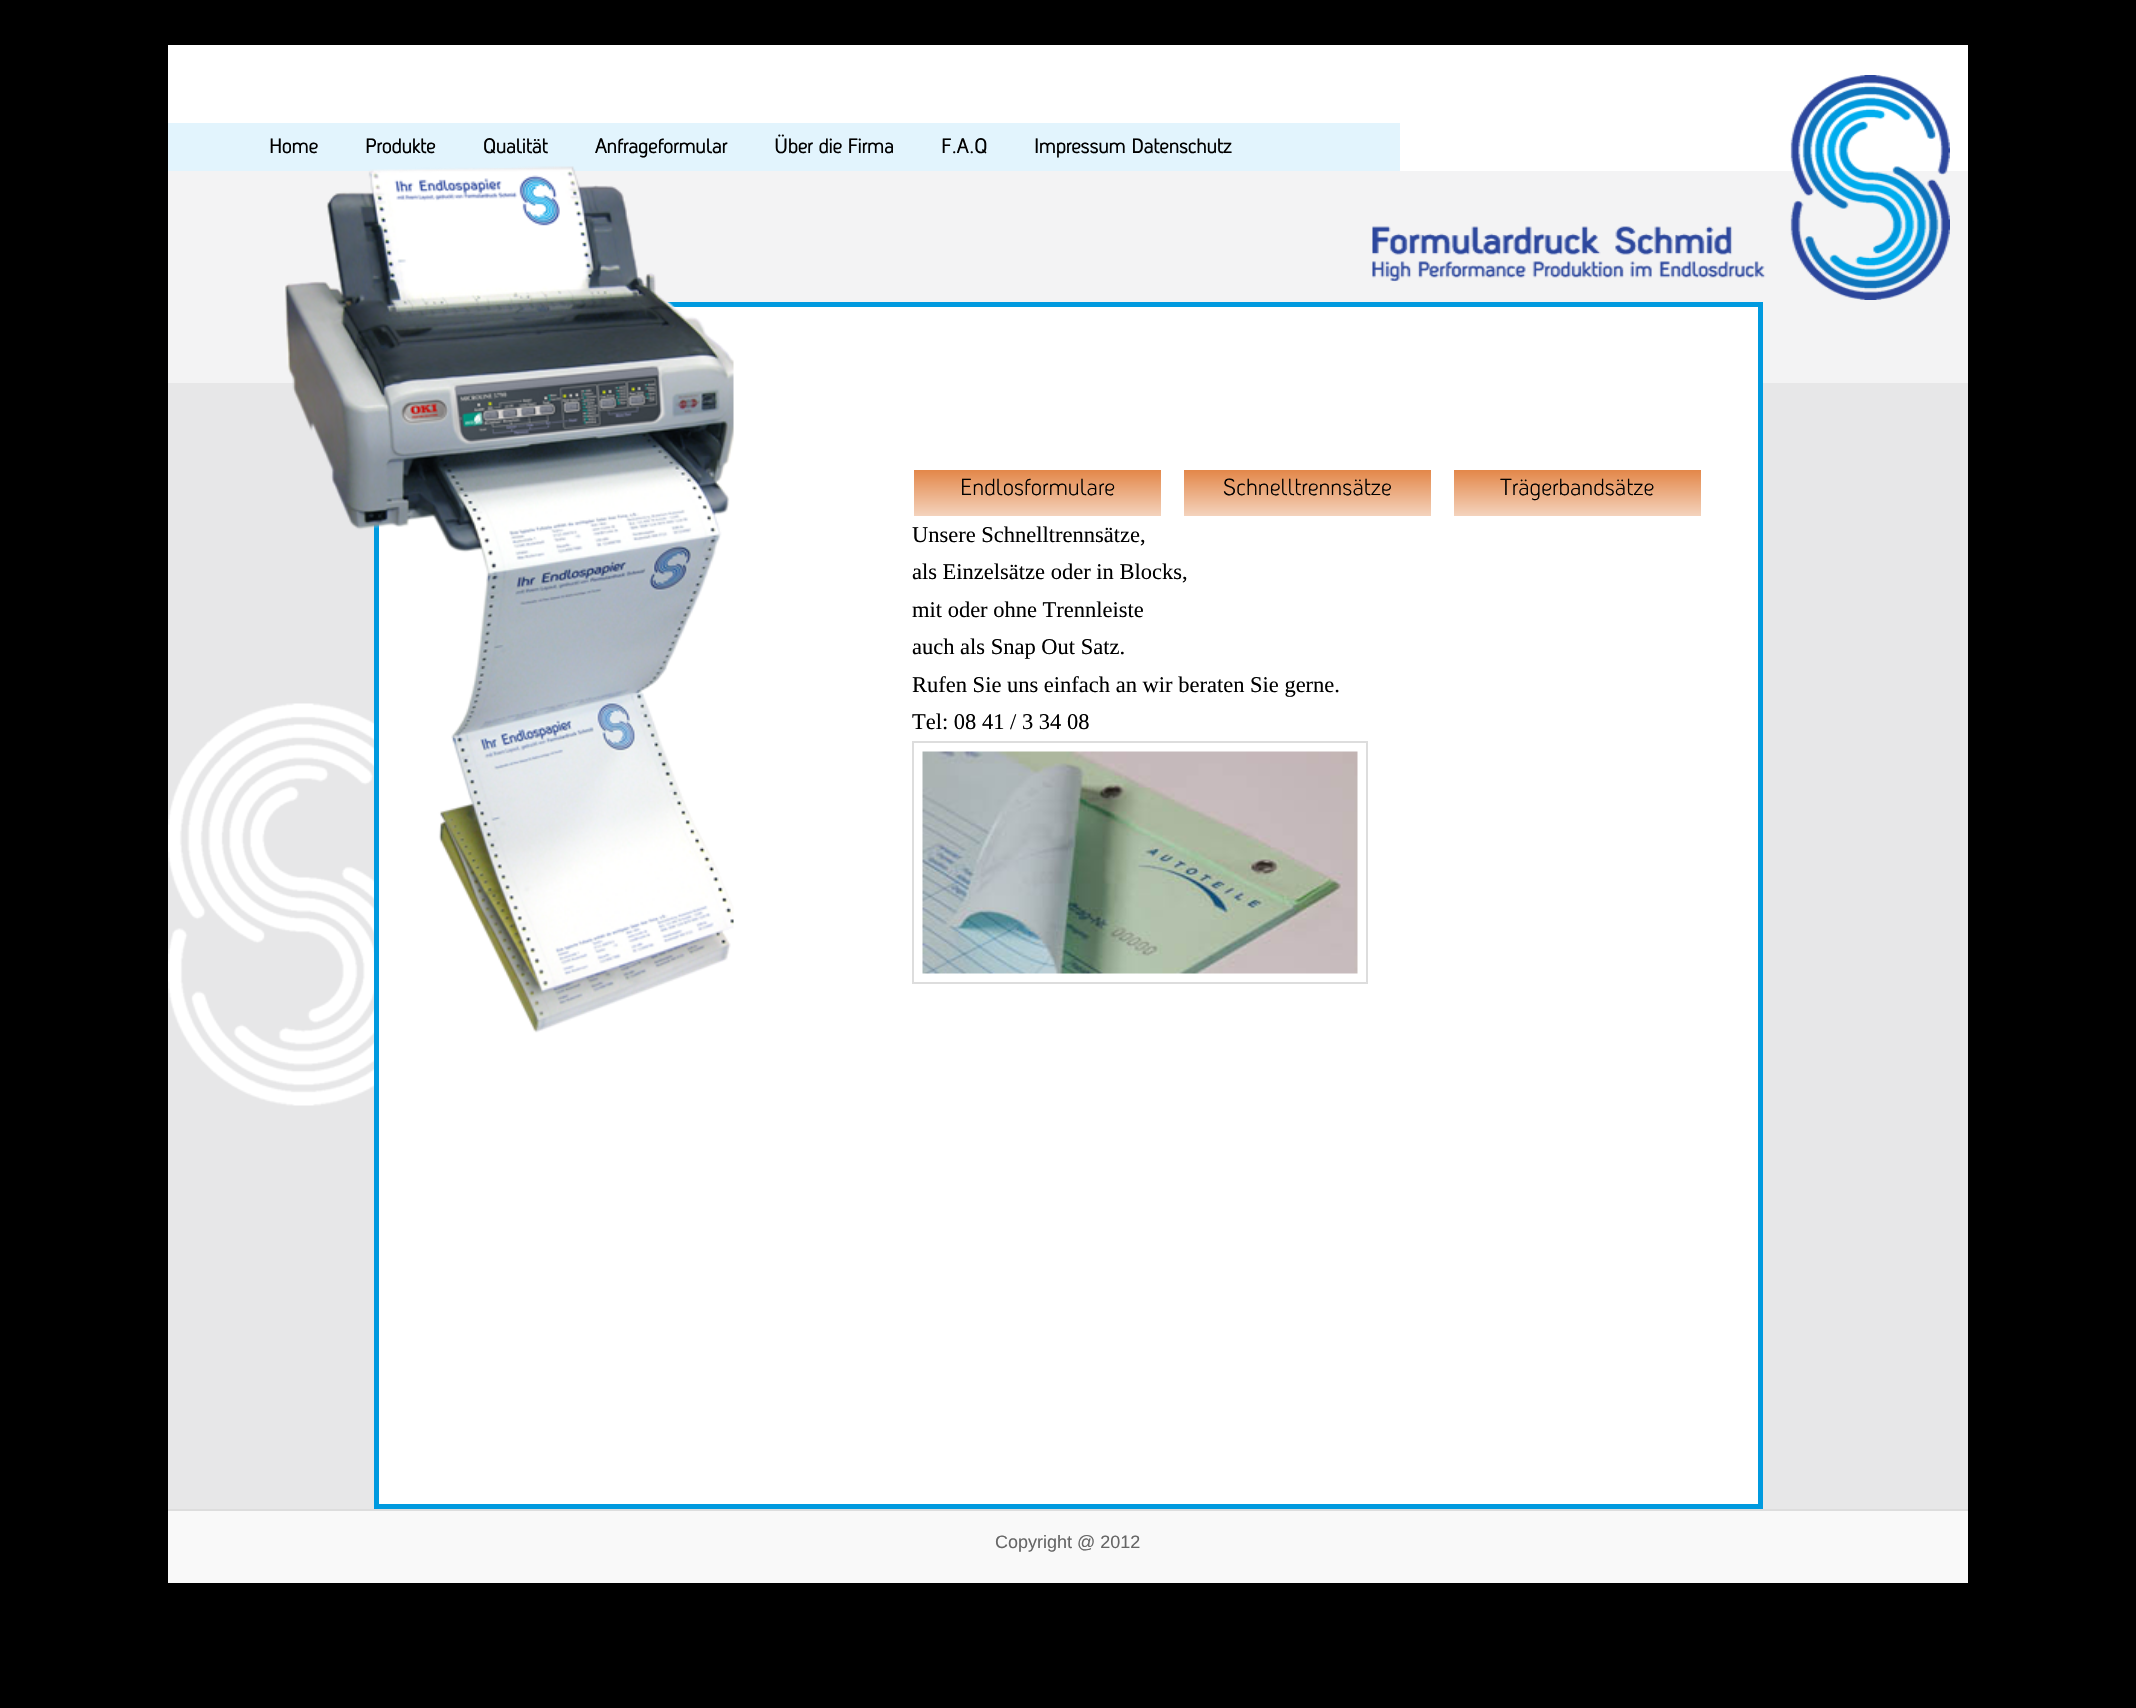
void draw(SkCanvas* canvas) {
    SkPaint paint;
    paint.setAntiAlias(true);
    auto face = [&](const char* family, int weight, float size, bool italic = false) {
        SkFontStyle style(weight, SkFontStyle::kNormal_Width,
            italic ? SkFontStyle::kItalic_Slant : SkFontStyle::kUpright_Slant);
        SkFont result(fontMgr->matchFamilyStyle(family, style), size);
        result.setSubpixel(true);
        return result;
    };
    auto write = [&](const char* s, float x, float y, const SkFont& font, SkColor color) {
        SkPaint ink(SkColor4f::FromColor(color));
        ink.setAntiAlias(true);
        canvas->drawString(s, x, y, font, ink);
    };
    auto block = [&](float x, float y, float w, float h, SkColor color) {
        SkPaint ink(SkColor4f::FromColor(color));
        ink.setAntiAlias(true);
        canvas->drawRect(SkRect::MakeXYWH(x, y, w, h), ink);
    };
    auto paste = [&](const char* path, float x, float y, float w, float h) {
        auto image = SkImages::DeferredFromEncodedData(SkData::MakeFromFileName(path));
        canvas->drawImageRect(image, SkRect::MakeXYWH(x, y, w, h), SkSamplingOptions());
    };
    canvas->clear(SK_ColorBLACK);
    block(168, 45, 1800, 126, SK_ColorWHITE);
    block(168, 123, 1232, 48, SkColorSetRGB(226, 244, 253));
    block(168, 171, 1800, 212, SkColorSetRGB(243, 243, 244));
    block(168, 383, 1800, 1126, SkColorSetRGB(231, 231, 232));
    paste("pic3.png", 168, 703, 206, 403);
    paint.setColor(SK_ColorWHITE);
    canvas->drawRect(SkRect::MakeXYWH(376.5f, 304.5f, 1384, 1202), paint);
    paint.setStyle(SkPaint::kStroke_Style);
    paint.setStrokeWidth(5);
    paint.setColor(SkColorSetRGB(0, 154, 223));
    canvas->drawRect(SkRect::MakeXYWH(376.5f, 304.5f, 1384, 1202), paint);
    paste("pic1.png", 283, 166, 451, 867);
    paste("pic2.png", 1372, 75, 578, 225);
    auto kFont1 = face("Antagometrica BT", 700, 19.5f);
    write("Home", 269, 153, kFont1, SK_ColorBLACK);
    write("Produkte", 365, 153, kFont1, SK_ColorBLACK);
    write("Qualität", 483, 153, kFont1, SK_ColorBLACK);
    write("Anfrageformular", 595, 153, kFont1, SK_ColorBLACK);
    write("Über die Firma", 774, 153, kFont1, SK_ColorBLACK);
    write("F.A.Q", 941, 153, kFont1, SK_ColorBLACK);
    write("Impressum Datenschutz", 1034, 153, kFont1, SK_ColorBLACK);
    paint.setStyle(SkPaint::kFill_Style);
    {
        const SkColor colors[] = {SkColorSetRGB(227, 135, 73), SkColorSetRGB(244, 211, 189)};
        const float stops[] = {0, 1};
        const SkPoint ends[] = {{1037, 470}, {1037, 516}};
        paint.setShader(SkGradientShader::MakeLinear(ends, colors, stops, 2, SkTileMode::kClamp));
        paint.setAlpha(255);
    }
    canvas->drawRect(SkRect::MakeXYWH(914, 470, 247, 46), paint);
    auto kFont2 = face("Antagometrica BT", 300, 22.5f);
    write("Endlosformulare", 960, 495, kFont2, SK_ColorBLACK);
    {
        const SkColor colors[] = {SkColorSetRGB(227, 135, 73), SkColorSetRGB(244, 211, 189)};
        const float stops[] = {0, 1};
        const SkPoint ends[] = {{1307, 470}, {1307, 516}};
        paint.setShader(SkGradientShader::MakeLinear(ends, colors, stops, 2, SkTileMode::kClamp));
        paint.setAlpha(255);
    }
    canvas->drawRect(SkRect::MakeXYWH(1184, 470, 247, 46), paint);
    write("Schnelltrennsätze", 1223, 495, kFont2, SK_ColorBLACK);
    {
        const SkColor colors[] = {SkColorSetRGB(227, 135, 73), SkColorSetRGB(244, 211, 189)};
        const float stops[] = {0, 1};
        const SkPoint ends[] = {{1577, 470}, {1577, 516}};
        paint.setShader(SkGradientShader::MakeLinear(ends, colors, stops, 2, SkTileMode::kClamp));
        paint.setAlpha(255);
    }
    canvas->drawRect(SkRect::MakeXYWH(1454, 470, 247, 46), paint);
    write("Trägerbandsätze", 1500, 495, kFont2, SK_ColorBLACK);
    auto kFont3 = face("Liberation Serif", 400, 22.5f);
    write("Unsere Schnelltrennsätze,", 912, 542, kFont3, SK_ColorBLACK);
    write("als Einzelsätze oder in Blocks,", 912, 579, kFont3, SK_ColorBLACK);
    write("mit oder ohne Trennleiste", 912, 617, kFont3, SK_ColorBLACK);
    write("auch als Snap Out Satz.", 912, 654, kFont3, SK_ColorBLACK);
    write("Rufen Sie uns einfach an wir beraten Sie gerne.", 912, 692, kFont3, SK_ColorBLACK);
    write("Tel: 08 41 / 3 34 08", 912, 729, kFont3, SK_ColorBLACK);
    paint.setStyle(SkPaint::kStroke_Style);
    paint.setStrokeWidth(2);
    paint.setShader(nullptr);
    paint.setColor(SkColorSetRGB(221, 221, 221));
    canvas->drawRect(SkRect::MakeXYWH(913, 742, 454, 241), paint);
    paste("pic4.png", 922, 751, 436, 223);
    block(168, 1511, 1800, 72, SkColorSetRGB(249, 249, 249));
    block(168, 1509, 1800, 2, SkColorSetRGB(221, 221, 221));
    auto kFont4 = face("Liberation Sans", 400, 18);
    write("Copyright @ 2012", 995, 1548, kFont4, SkColorSetRGB(102, 102, 102));
}
